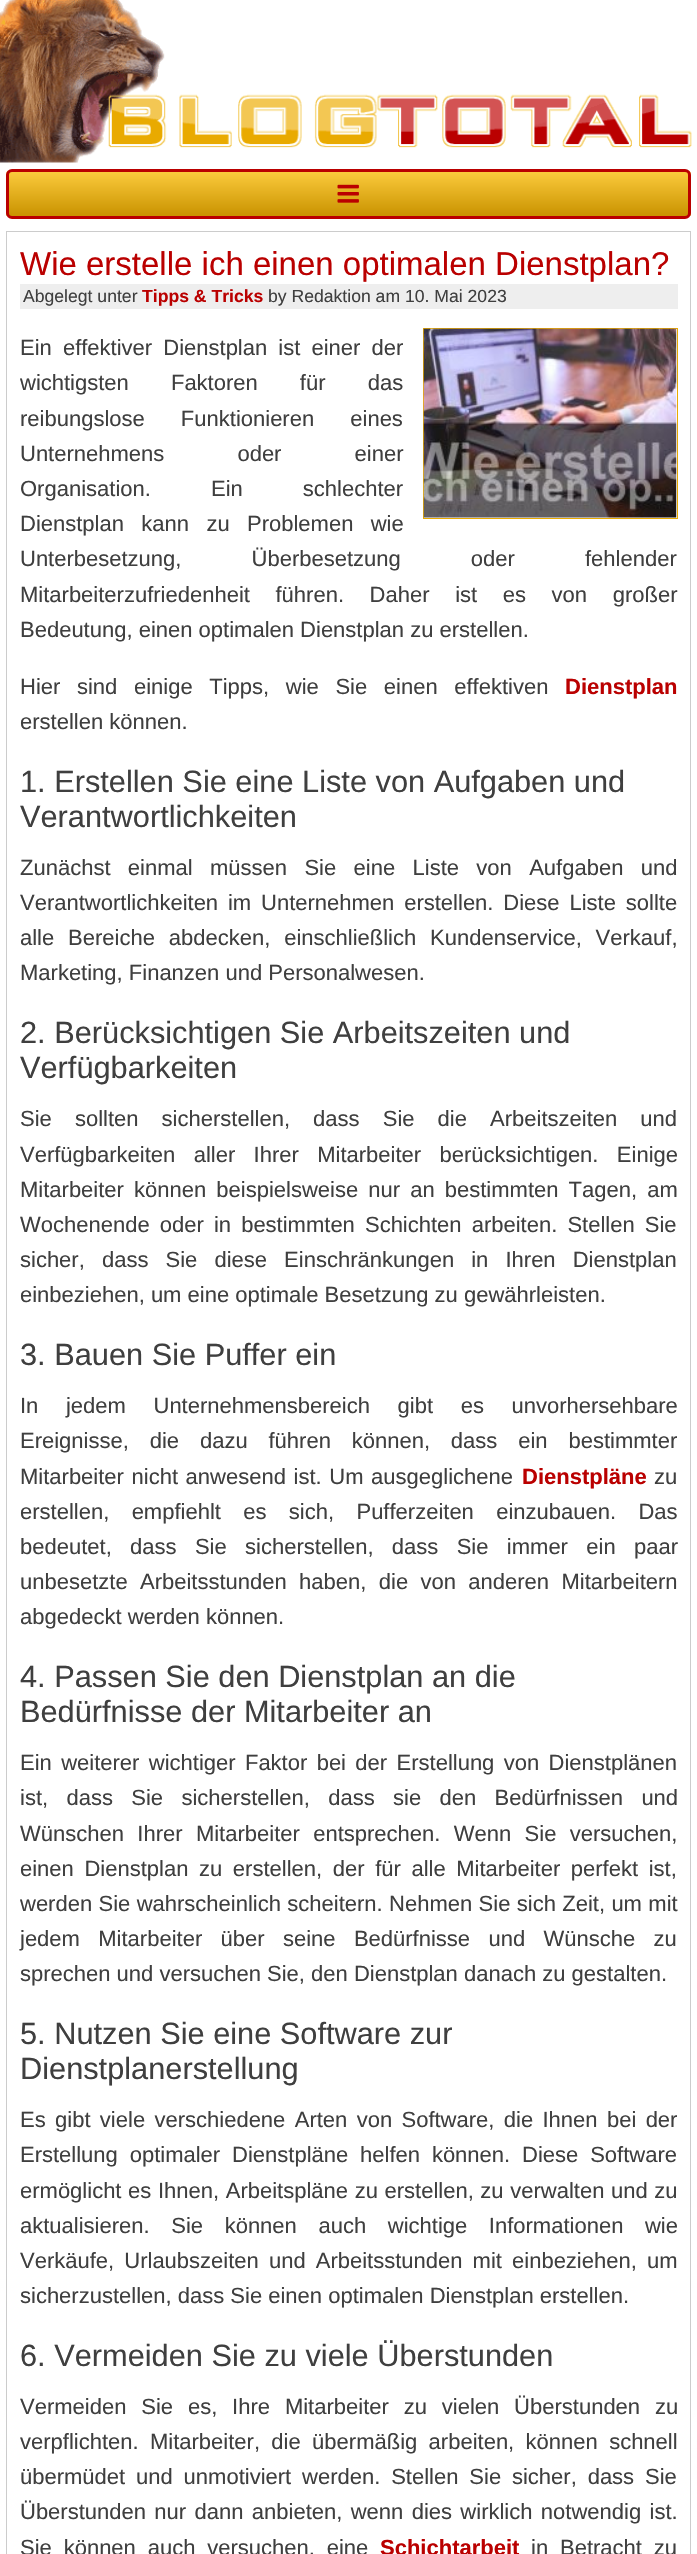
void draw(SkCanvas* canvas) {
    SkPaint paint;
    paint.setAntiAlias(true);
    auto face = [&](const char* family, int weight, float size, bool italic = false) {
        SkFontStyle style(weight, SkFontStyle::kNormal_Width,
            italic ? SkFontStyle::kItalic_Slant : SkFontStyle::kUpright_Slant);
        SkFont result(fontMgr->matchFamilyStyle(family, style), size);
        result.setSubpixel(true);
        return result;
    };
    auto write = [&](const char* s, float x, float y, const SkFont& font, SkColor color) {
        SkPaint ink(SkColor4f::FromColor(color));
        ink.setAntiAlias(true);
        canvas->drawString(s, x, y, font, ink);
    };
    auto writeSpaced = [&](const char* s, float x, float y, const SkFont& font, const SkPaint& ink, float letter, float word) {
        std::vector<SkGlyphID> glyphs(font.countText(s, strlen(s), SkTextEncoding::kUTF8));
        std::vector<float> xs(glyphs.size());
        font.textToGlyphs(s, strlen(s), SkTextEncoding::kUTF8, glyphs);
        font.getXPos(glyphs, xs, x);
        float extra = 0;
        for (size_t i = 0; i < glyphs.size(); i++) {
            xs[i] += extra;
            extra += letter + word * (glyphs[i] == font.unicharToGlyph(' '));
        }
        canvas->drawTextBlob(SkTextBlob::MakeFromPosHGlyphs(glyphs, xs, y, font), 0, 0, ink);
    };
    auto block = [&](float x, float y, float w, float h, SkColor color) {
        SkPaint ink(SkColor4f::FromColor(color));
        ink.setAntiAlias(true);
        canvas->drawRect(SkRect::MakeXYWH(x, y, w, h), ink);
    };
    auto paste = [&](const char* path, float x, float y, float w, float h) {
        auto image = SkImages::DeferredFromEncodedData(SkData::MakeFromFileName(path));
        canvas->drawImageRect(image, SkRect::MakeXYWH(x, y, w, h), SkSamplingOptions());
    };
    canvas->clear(SK_ColorWHITE);
    paste("pic1.png", 0, 0, 692, 163);
    canvas->save();
    canvas->clipPath(SkPathBuilder().moveTo(12, 169).lineTo(685, 169).cubicTo(688.5f, 169, 691, 171.5f, 691, 175).lineTo(691, 213).cubicTo(691, 216.5f, 688.5f, 219, 685, 219).lineTo(12, 219).cubicTo(8.5f, 219, 6, 216.5f, 6, 213).lineTo(6, 175).cubicTo(6, 171.5f, 8.5f, 169, 12, 169).close().detach(), true);
    {
        const SkColor colors[] = {SkColorSetRGB(252, 203, 61), SkColorSetRGB(201, 147, 0)};
        const float stops[] = {0, 1};
        const SkPoint ends[] = {{349, 171}, {349, 216}};
        paint.setShader(SkGradientShader::MakeLinear(ends, colors, stops, 2, SkTileMode::kClamp));
        paint.setAlpha(255);
    }
    canvas->drawRect(SkRect::MakeXYWH(6, 171, 685, 45), paint);
    canvas->restore();
    paint.setStyle(SkPaint::kStroke_Style);
    paint.setStrokeWidth(3);
    paint.setShader(nullptr);
    paint.setColor(SkColorSetRGB(186, 0, 0));
    canvas->drawRoundRect(SkRect::MakeXYWH(7.5f, 170.5f, 682, 47), 4.5f, 4.5f, paint);
    paste("pic2.png", 337, 184, 22, 19);
    paint.setStrokeWidth(1);
    paint.setColor(SkColorSetRGB(204, 204, 204));
    canvas->drawRect(SkRect::MakeXYWH(6.5f, 231.5f, 684, 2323), paint);
    auto kFont1 = face("Liberation Sans", 400, 33);
    write("Wie erstelle ich einen optimalen Dienstplan?", 20, 275, kFont1, SkColorSetRGB(186, 0, 0));
    block(20, 284, 658, 25, SkColorSetRGB(238, 238, 238));
    auto kFont2 = face("Liberation Sans", 400, 17.6f);
    write("Abgelegt unter", 23, 302, kFont2, SkColorSetRGB(63, 63, 63));
    auto kFont3 = face("Liberation Sans", 700, 17.6f);
    write("Tipps & Tricks", 142, 302, kFont3, SkColorSetRGB(186, 0, 0));
    write("by Redaktion am 10. Mai 2023", 268, 302, kFont2, SkColorSetRGB(63, 63, 63));
    paint.setColor(SkColorSetRGB(233, 170, 0));
    canvas->drawRect(SkRect::MakeXYWH(423.5f, 328.5f, 254, 190), paint);
    paste("pic3.png", 423, 328, 254, 190);
    auto kFont4 = face("Liberation Sans", 400, 22);
    paint.setStyle(SkPaint::kFill_Style);
    paint.setColor(SkColorSetRGB(63, 63, 63));
    writeSpaced("Ein effektiver Dienstplan ist einer der", 20, 355, kFont4, paint, 0, 5);
    writeSpaced("wichtigsten Faktoren für das", 20, 390, kFont4, paint, 0, 36);
    writeSpaced("reibungslose Funktionieren eines", 20, 426, kFont4, paint, 0, 30);
    writeSpaced("Unternehmens oder einer", 20, 461, kFont4, paint, 0, 67);
    writeSpaced("Organisation. Ein schlechter", 20, 496, kFont4, paint, 0, 54);
    writeSpaced("Dienstplan kann zu Problemen wie", 20, 531, kFont4, paint, 0, 11.25f);
    writeSpaced("Unterbesetzung, Überbesetzung oder fehlender", 20, 566, kFont4, paint, 0, 64);
    writeSpaced("Mitarbeiterzufriedenheit führen. Daher ist es von großer", 20, 602, kFont4, paint, 0, 19.5f);
    write("Bedeutung, einen optimalen Dienstplan zu erstellen.", 20, 637, kFont4, SkColorSetRGB(63, 63, 63));
    writeSpaced("Hier sind einige Tipps, wie Sie einen effektiven", 20, 694, kFont4, paint, 0, 10.5f);
    auto kFont5 = face("Liberation Sans", 700, 22);
    write("Dienstplan", 565, 694, kFont5, SkColorSetRGB(186, 0, 0));
    write("erstellen können.", 20, 729, kFont4, SkColorSetRGB(63, 63, 63));
    auto kFont6 = face("Liberation Sans", 400, 30.75f);
    write("1. Erstellen Sie eine Liste von Aufgaben und", 20, 792, kFont6, SkColorSetRGB(63, 63, 63));
    write("Verantwortlichkeiten", 20, 827, kFont6, SkColorSetRGB(63, 63, 63));
    writeSpaced("Zunächst einmal müssen Sie eine Liste von Aufgaben und", 20, 875, kFont4, paint, 0, 11.25f);
    writeSpaced("Verantwortlichkeiten im Unternehmen erstellen. Diese Liste sollte", 20, 910, kFont4, paint, 0, 3.75f);
    writeSpaced("alle Bereiche abdecken, einschließlich Kundenservice, Verkauf,", 20, 945, kFont4, paint, 0, 7.75f);
    write("Marketing, Finanzen und Personalwesen.", 20, 980, kFont4, SkColorSetRGB(63, 63, 63));
    write("2. Berücksichtigen Sie Arbeitszeiten und", 20, 1043, kFont6, SkColorSetRGB(63, 63, 63));
    write("Verfügbarkeiten", 20, 1078, kFont6, SkColorSetRGB(63, 63, 63));
    writeSpaced("Sie sollten sicherstellen, dass Sie die Arbeitszeiten und", 20, 1126, kFont4, paint, 0, 17);
    writeSpaced("Verfügbarkeiten aller Ihrer Mitarbeiter berücksichtigen. Einige", 20, 1162, kFont4, paint, 0, 12.25f);
    writeSpaced("Mitarbeiter können beispielsweise nur an bestimmten Tagen, am", 20, 1197, kFont4, paint, 0, 4);
    writeSpaced("Wochenende oder in bestimmten Schichten arbeiten. Stellen Sie", 20, 1232, kFont4, paint, 0, 4);
    writeSpaced("sicher, dass Sie diese Einschränkungen in Ihren Dienstplan", 20, 1267, kFont4, paint, 0, 11);
    write("einbeziehen, um eine optimale Besetzung zu gewährleisten.", 20, 1302, kFont4, SkColorSetRGB(63, 63, 63));
    write("3. Bauen Sie Puffer ein", 20, 1365, kFont6, SkColorSetRGB(63, 63, 63));
    writeSpaced("In jedem Unternehmensbereich gibt es unvorhersehbare", 20, 1413, kFont4, paint, 0, 21.5f);
    writeSpaced("Ereignisse, die dazu führen können, dass ein bestimmter", 20, 1448, kFont4, paint, 0, 14.75f);
    writeSpaced("Mitarbeiter nicht anwesend ist. Um ausgeglichene", 20, 1484, kFont4, paint, 0, 1.5f);
    write("Dienstpläne", 522, 1484, kFont5, SkColorSetRGB(186, 0, 0));
    write("zu", 654, 1484, kFont4, SkColorSetRGB(63, 63, 63));
    writeSpaced("erstellen, empfiehlt es sich, Pufferzeiten einzubauen. Das", 20, 1519, kFont4, paint, 0, 16.25f);
    writeSpaced("bedeutet, dass Sie sicherstellen, dass Sie immer ein paar", 20, 1554, kFont4, paint, 0, 12.25f);
    writeSpaced("unbesetzte Arbeitsstunden haben, die von anderen Mitarbeitern", 20, 1589, kFont4, paint, 0, 6.25f);
    write("abgedeckt werden können.", 20, 1624, kFont4, SkColorSetRGB(63, 63, 63));
    write("4. Passen Sie den Dienstplan an die", 20, 1687, kFont6, SkColorSetRGB(63, 63, 63));
    write("Bedürfnisse der Mitarbeiter an", 20, 1722, kFont6, SkColorSetRGB(63, 63, 63));
    writeSpaced("Ein weiterer wichtiger Faktor bei der Erstellung von Dienstplänen", 20, 1770, kFont4, paint, 0, 3.25f);
    writeSpaced("ist, dass Sie sicherstellen, dass sie den Bedürfnissen und", 20, 1805, kFont4, paint, 0, 12.25f);
    writeSpaced("Wünschen Ihrer Mitarbeiter entsprechen. Wenn Sie versuchen,", 20, 1841, kFont4, paint, 0, 7.25f);
    writeSpaced("einen Dienstplan zu erstellen, der für alle Mitarbeiter perfekt ist,", 20, 1876, kFont4, paint, 0, 4.5f);
    writeSpaced("werden Sie wahrscheinlich scheitern. Nehmen Sie sich Zeit, um mit", 20, 1911, kFont4, paint, 0, 0.25f);
    writeSpaced("jedem Mitarbeiter über seine Bedürfnisse und Wünsche zu", 20, 1946, kFont4, paint, 0, 12.25f);
    write("sprechen und versuchen Sie, den Dienstplan danach zu gestalten.", 20, 1981, kFont4, SkColorSetRGB(63, 63, 63));
    write("5. Nutzen Sie eine Software zur", 20, 2044, kFont6, SkColorSetRGB(63, 63, 63));
    write("Dienstplanerstellung", 20, 2079, kFont6, SkColorSetRGB(63, 63, 63));
    writeSpaced("Es gibt viele verschiedene Arten von Software, die Ihnen bei der", 20, 2127, kFont4, paint, 0, 3.25f);
    writeSpaced("Erstellung optimaler Dienstpläne helfen können. Diese Software", 20, 2162, kFont4, paint, 0, 5.75f);
    writeSpaced("ermöglicht es Ihnen, Arbeitspläne zu erstellen, zu verwalten und zu", 20, 2198, kFont4, paint, 0, 0.5f);
    writeSpaced("aktualisieren. Sie können auch wichtige Informationen wie", 20, 2233, kFont4, paint, 0, 15.5f);
    writeSpaced("Verkäufe, Urlaubszeiten und Arbeitsstunden mit einbeziehen, um", 20, 2268, kFont4, paint, 0, 4);
    write("sicherzustellen, dass Sie einen optimalen Dienstplan erstellen.", 20, 2303, kFont4, SkColorSetRGB(63, 63, 63));
    write("6. Vermeiden Sie zu viele Überstunden", 20, 2366, kFont6, SkColorSetRGB(63, 63, 63));
    writeSpaced("Vermeiden Sie es, Ihre Mitarbeiter zu vielen Überstunden zu", 20, 2414, kFont4, paint, 0, 8.75f);
    writeSpaced("verpflichten. Mitarbeiter, die übermäßig arbeiten, können schnell", 20, 2449, kFont4, paint, 0, 5.25f);
    writeSpaced("übermüdet und unmotiviert werden. Stellen Sie sicher, dass Sie", 20, 2484, kFont4, paint, 0, 4.75f);
    writeSpaced("Überstunden nur dann anbieten, wenn dies wirklich notwendig ist.", 20, 2519, kFont4, paint, 0, 2.25f);
    writeSpaced("Sie können auch versuchen, eine", 20, 2555, kFont4, paint, 0, 5.75f);
    write("Schichtarbeit", 380, 2555, kFont5, SkColorSetRGB(186, 0, 0));
    writeSpaced("in Betracht zu", 531, 2555, kFont4, paint, 0, 5.75f);
}
